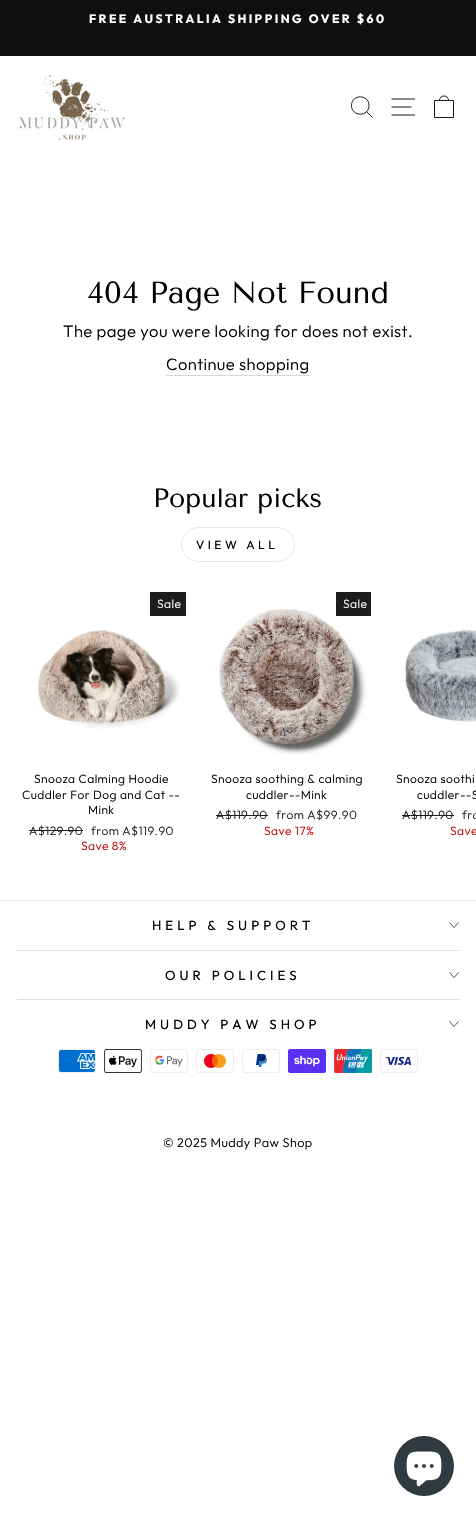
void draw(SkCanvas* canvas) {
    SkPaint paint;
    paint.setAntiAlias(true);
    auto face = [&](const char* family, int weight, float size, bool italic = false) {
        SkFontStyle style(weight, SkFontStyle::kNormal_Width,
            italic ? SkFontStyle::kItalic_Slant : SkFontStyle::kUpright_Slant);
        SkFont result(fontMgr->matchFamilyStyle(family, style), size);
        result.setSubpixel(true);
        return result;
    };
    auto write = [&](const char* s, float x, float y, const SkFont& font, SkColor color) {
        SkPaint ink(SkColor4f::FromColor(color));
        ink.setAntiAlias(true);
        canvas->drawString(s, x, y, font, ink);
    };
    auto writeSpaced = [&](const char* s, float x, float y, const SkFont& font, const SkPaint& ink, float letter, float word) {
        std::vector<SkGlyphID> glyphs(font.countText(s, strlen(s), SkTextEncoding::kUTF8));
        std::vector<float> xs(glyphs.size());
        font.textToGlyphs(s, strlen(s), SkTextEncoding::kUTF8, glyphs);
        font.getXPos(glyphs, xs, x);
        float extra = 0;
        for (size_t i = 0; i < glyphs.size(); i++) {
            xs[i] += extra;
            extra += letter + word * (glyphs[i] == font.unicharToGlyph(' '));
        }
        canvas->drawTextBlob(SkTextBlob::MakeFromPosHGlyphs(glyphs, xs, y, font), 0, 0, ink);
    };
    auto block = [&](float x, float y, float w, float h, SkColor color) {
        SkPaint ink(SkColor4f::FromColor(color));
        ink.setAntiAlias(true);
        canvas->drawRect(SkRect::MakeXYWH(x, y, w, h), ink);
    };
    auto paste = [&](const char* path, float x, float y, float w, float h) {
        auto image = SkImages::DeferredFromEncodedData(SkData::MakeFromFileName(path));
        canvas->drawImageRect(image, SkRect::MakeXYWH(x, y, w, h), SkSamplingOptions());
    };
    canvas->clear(SK_ColorWHITE);
    block(0, 0, 476, 56, SkColorSetRGB(15, 15, 15));
    auto kFont1 = face("Outfit", 700, 12.15f);
    paint.setColor(SK_ColorWHITE);
    writeSpaced("FREE AUSTRALIA SHIPPING OVER $60", 89, 23, kFont1, paint, 2.4f, 0);
    paste("pic1.png", 18, 75, 108, 65);
    paint.setStyle(SkPaint::kStroke_Style);
    paint.setStrokeWidth(0.9f);
    paint.setColor(SK_ColorBLACK);
    canvas->drawPath(SkPathBuilder().moveTo(369, 105.5f).cubicTo(369, 117, 351.5f, 117, 351.5f, 105.5f).cubicTo(351.5f, 94, 369, 94, 369, 105.5f).close().moveTo(372.5f, 117.5f).lineTo(366.5f, 111.5f).detach(), paint);
    canvas->drawPath(SkPathBuilder().moveTo(391.5f, 99).lineTo(415, 99).moveTo(391.5f, 107).lineTo(411.5f, 107).moveTo(391.5f, 115).lineTo(415, 115).moveTo(434.5f, 100.5f).lineTo(453.5f, 100.5f).lineTo(453.5f, 117.5f).lineTo(434.5f, 117.5f).close().moveTo(439.5f, 100.5f).cubicTo(439.5f, 94.5f, 448.5f, 94.5f, 448.5f, 100.5f).detach(), paint);
    auto kFont2 = face("Tenor Sans", 400, 30.5f);
    write("404 Page Not Found", 87, 303, kFont2, SK_ColorBLACK);
    auto kFont3 = face("Outfit", 300, 16.6f);
    paint.setStyle(SkPaint::kFill_Style);
    writeSpaced("The page you were looking for does not exist.", 63, 337, kFont3, paint, 0.4f, 0);
    block(166, 375, 144, 1, SkColorSetRGB(217, 217, 217));
    writeSpaced("Continue shopping", 166, 370, kFont3, paint, 0.4f, 0);
    auto kFont4 = face("Tenor Sans", 400, 26.25f);
    write("Popular picks", 153, 507, kFont4, SK_ColorBLACK);
    paint.setStyle(SkPaint::kStroke_Style);
    paint.setStrokeWidth(1);
    paint.setColor(SkColorSetRGB(232, 232, 225));
    canvas->drawRoundRect(SkRect::MakeXYWH(181.5f, 527.5f, 113, 34), 17, 17, paint);
    auto kFont5 = face("Outfit", 400, 12);
    paint.setStyle(SkPaint::kFill_Style);
    paint.setColor(SK_ColorBLACK);
    writeSpaced("VIEW ALL", 196, 549, kFont5, paint, 3.5f, 0);
    block(150, 592, 36, 24, SkColorSetRGB(28, 29, 29));
    auto kFont6 = face("Outfit", 300, 12);
    paint.setColor(SK_ColorWHITE);
    writeSpaced("Sale", 157, 608, kFont6, paint, 0.4f, 0);
    paste("pic2.png", 37, 629, 143, 100);
    paint.setColor(SK_ColorBLACK);
    writeSpaced("Snooza Calming Hoodie", 34, 783, kFont6, paint, 0.4f, 0);
    writeSpaced("Cuddler For Dog and Cat --", 22, 799, kFont6, paint, 0.4f, 0);
    writeSpaced("Mink", 88, 814, kFont6, paint, 0.4f, 0);
    paint.setColor(SkColorSetRGB(28, 29, 29));
    writeSpaced("A$129.90", 29, 835, kFont6, paint, 0.4f, 0);
    block(29, 830, 54, 1, SkColorSetRGB(28, 29, 29));
    writeSpaced("from A$119.90", 91, 835, kFont6, paint, 0.4f, 0);
    paint.setColor(SkColorSetRGB(194, 0, 0));
    writeSpaced("Save 8%", 81, 850, kFont6, paint, 0.4f, 0);
    paste("pic3.png", 219, 608, 148, 147);
    block(336, 592, 35, 24, SkColorSetRGB(28, 29, 29));
    paint.setColor(SK_ColorWHITE);
    writeSpaced("Sale", 343, 608, kFont6, paint, 0.4f, 0);
    paint.setColor(SK_ColorBLACK);
    writeSpaced("Snooza soothing & calming", 211, 783, kFont6, paint, 0.4f, 0);
    writeSpaced("cuddler--Mink", 246, 799, kFont6, paint, 0.4f, 0);
    paint.setColor(SkColorSetRGB(28, 29, 29));
    writeSpaced("A$119.90", 216, 819, kFont6, paint, 0.4f, 0);
    block(216, 815, 52, 1, SkColorSetRGB(28, 29, 29));
    writeSpaced("from A$99.90", 276, 819, kFont6, paint, 0.4f, 0);
    paint.setColor(SkColorSetRGB(194, 0, 0));
    writeSpaced("Save 17%", 264, 835, kFont6, paint, 0.4f, 0);
    paste("pic4.png", 405, 629, 71, 93);
    paint.setColor(SK_ColorBLACK);
    writeSpaced("Snooza soothi", 396, 783, kFont6, paint, 0.4f, 0);
    writeSpaced("cuddler--S", 417, 799, kFont6, paint, 0.4f, 0);
    paint.setColor(SkColorSetRGB(28, 29, 29));
    writeSpaced("A$119.90", 402, 819, kFont6, paint, 0.4f, 0);
    block(402, 815, 52, 1, SkColorSetRGB(28, 29, 29));
    writeSpaced("fro", 462, 819, kFont6, paint, 0.4f, 0);
    paint.setColor(SkColorSetRGB(194, 0, 0));
    writeSpaced("Save", 450, 835, kFont6, paint, 0.4f, 0);
    block(0, 900, 476, 1, SkColorSetRGB(232, 232, 225));
    auto kFont7 = face("Outfit", 400, 13.25f);
    paint.setColor(SK_ColorBLACK);
    writeSpaced("HELP & SUPPORT", 152, 930, kFont7, paint, 4, 0);
    paint.setStyle(SkPaint::kStroke_Style);
    paint.setStrokeWidth(0.7f);
    canvas->drawPath(SkPathBuilder().moveTo(449.5f, 922.5f).lineTo(454, 927.5f).lineTo(458.5f, 922.5f).detach(), paint);
    block(17, 950, 442, 1, SkColorSetRGB(224, 224, 224));
    paint.setStyle(SkPaint::kFill_Style);
    writeSpaced("OUR POLICIES", 165, 980, kFont7, paint, 4, 0);
    paint.setStyle(SkPaint::kStroke_Style);
    canvas->drawPath(SkPathBuilder().moveTo(449.5f, 972.5f).lineTo(454, 977.5f).lineTo(458.5f, 972.5f).detach(), paint);
    block(17, 999, 442, 1, SkColorSetRGB(224, 224, 224));
    paint.setStyle(SkPaint::kFill_Style);
    writeSpaced("MUDDY PAW SHOP", 145, 1029, kFont7, paint, 4, 0);
    paint.setStyle(SkPaint::kStroke_Style);
    canvas->drawPath(SkPathBuilder().moveTo(449.5f, 1021.5f).lineTo(454, 1026.5f).lineTo(458.5f, 1021.5f).detach(), paint);
    paste("pic5.png", 58, 1049, 38, 24);
    paste("pic6.png", 104, 1049, 38, 24);
    paste("pic7.png", 150, 1049, 38, 24);
    paste("pic8.png", 196, 1049, 38, 24);
    paste("pic9.png", 242, 1049, 38, 24);
    paste("pic10.png", 288, 1049, 38, 24);
    paste("pic11.png", 334, 1049, 38, 24);
    paste("pic12.png", 380, 1049, 38, 24);
    auto kFont8 = face("Outfit", 300, 12.6f);
    paint.setStyle(SkPaint::kFill_Style);
    writeSpaced("© 2025 Muddy Paw Shop", 163, 1147, kFont8, paint, 0.4f, 0);
    paint.setColor(SkColorSetRGB(49, 58, 63));
    canvas->drawCircle(424, 1466, 30, paint);
    paste("pic13.png", 406, 1451, 36, 36);
}
